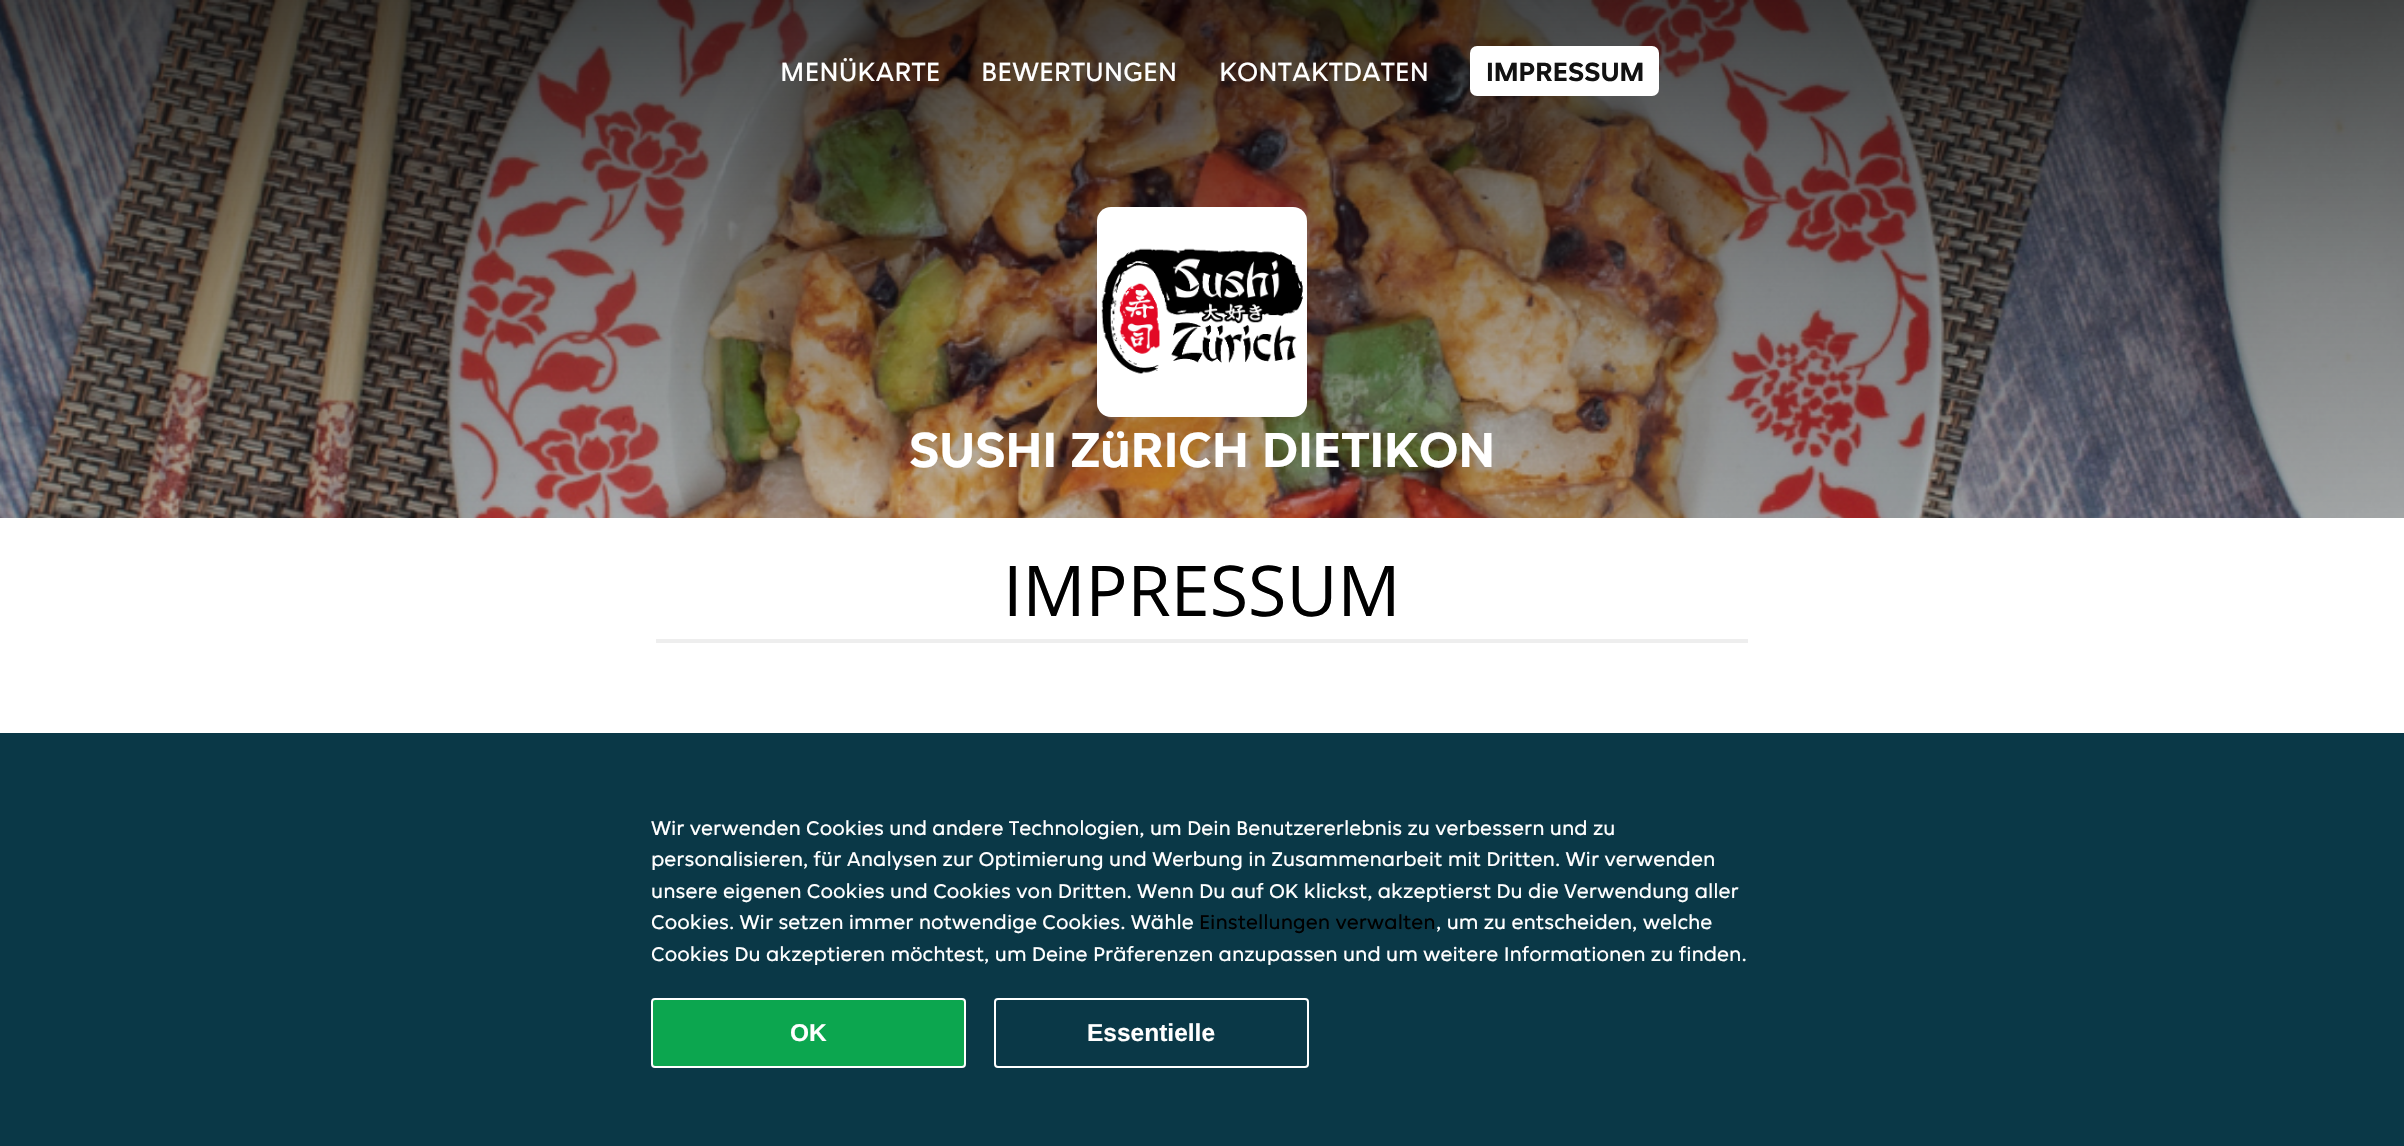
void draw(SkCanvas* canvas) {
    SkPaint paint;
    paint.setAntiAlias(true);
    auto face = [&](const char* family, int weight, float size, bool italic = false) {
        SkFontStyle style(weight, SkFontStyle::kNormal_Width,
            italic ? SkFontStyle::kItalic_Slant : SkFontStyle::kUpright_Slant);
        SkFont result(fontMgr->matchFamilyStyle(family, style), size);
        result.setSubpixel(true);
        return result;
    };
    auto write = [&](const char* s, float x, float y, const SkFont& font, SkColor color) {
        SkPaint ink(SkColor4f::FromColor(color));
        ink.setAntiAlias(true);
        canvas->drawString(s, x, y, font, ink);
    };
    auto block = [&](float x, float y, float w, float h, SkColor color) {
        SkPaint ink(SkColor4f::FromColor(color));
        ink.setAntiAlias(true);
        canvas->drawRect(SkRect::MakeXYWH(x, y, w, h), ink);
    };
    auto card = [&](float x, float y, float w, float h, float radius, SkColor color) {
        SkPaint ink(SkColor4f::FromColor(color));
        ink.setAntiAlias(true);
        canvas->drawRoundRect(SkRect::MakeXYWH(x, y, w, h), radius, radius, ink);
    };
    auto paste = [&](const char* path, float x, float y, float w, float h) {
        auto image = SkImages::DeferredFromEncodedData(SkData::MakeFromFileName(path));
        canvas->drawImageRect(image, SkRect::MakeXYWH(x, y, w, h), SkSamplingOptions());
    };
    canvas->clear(SK_ColorWHITE);
    paste("pic1.png", 0, 0, 2404, 518);
    {
        const SkColor colors[] = {SkColorSetARGB(179, 0, 0, 0), SkColorSetARGB(102, 0, 0, 0), SkColorSetARGB(51, 0, 0, 0), SkColorSetARGB(0, 0, 0, 0)};
        const float stops[] = {0, 0.33f, 0.67f, 1};
        const SkPoint ends[] = {{1202, 0}, {1202, 875}};
        paint.setShader(SkGradientShader::MakeLinear(ends, colors, stops, 4, SkTileMode::kClamp));
        paint.setAlpha(255);
    }
    canvas->drawRect(SkRect::MakeXYWH(0, 0, 2404, 518), paint);
    auto kFont1 = face("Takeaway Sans", 400, 28);
    write("MENÜKARTE", 780, 81, kFont1, SK_ColorWHITE);
    write("BEWERTUNGEN", 981, 81, kFont1, SK_ColorWHITE);
    write("KONTAKTDATEN", 1219, 81, kFont1, SK_ColorWHITE);
    card(1470, 46, 189, 50, 7, SK_ColorWHITE);
    auto kFont2 = face("Takeaway Sans", 700, 28);
    write("IMPRESSUM", 1486, 81, kFont2, SkColorSetRGB(18, 18, 18));
    card(1097, 207, 210, 210, 14, SK_ColorWHITE);
    paste("pic2.png", 1101, 248, 202, 126);
    auto kFont3 = face("Takeaway Sans", 700, 52.5f);
    write("SUSHI ZüRICH DIETIKON", 909, 467, kFont3, SK_ColorWHITE);
    auto kFont4 = face("Open Sans", 400, 70);
    write("IMPRESSUM", 1003, 616, kFont4, SK_ColorBLACK);
    block(656, 639, 1092, 4, SkColorSetRGB(238, 238, 238));
    block(0, 733, 2404, 413, SkColorSetRGB(10, 56, 71));
    auto kFont5 = face("Takeaway Sans", 400, 21);
    write("Wir verwenden Cookies und andere Technologien, um Dein Benutzererlebnis zu verbessern und zu", 651, 835, kFont5, SK_ColorWHITE);
    write("personalisieren, für Analysen zur Optimierung und Werbung in Zusammenarbeit mit Dritten. Wir verwenden", 651, 866, kFont5, SK_ColorWHITE);
    write("unsere eigenen Cookies und Cookies von Dritten. Wenn Du auf OK klickst, akzeptierst Du die Verwendung aller", 651, 898, kFont5, SK_ColorWHITE);
    write("Cookies. Wir setzen immer notwendige Cookies. Wähle", 651, 929, kFont5, SK_ColorWHITE);
    write("Einstellungen verwalten", 1199, 929, kFont5, SK_ColorBLACK);
    write(", um zu entscheiden, welche", 1436, 929, kFont5, SK_ColorWHITE);
    write("Cookies Du akzeptieren möchtest, um Deine Präferenzen anzupassen und um weitere Informationen zu finden.", 651, 961, kFont5, SK_ColorWHITE);
    paint.setShader(nullptr);
    paint.setColor(SkColorSetRGB(12, 166, 79));
    canvas->drawRoundRect(SkRect::MakeXYWH(652, 999, 313, 68), 3, 3, paint);
    paint.setStyle(SkPaint::kStroke_Style);
    paint.setStrokeWidth(2);
    paint.setColor(SK_ColorWHITE);
    canvas->drawRoundRect(SkRect::MakeXYWH(652, 999, 313, 68), 3, 3, paint);
    auto kFont6 = face("Liberation Sans", 700, 24.5f);
    write("OK", 790, 1041, kFont6, SK_ColorWHITE);
    canvas->drawRoundRect(SkRect::MakeXYWH(995, 999, 313, 68), 3, 3, paint);
    write("Essentielle", 1087, 1041, kFont6, SK_ColorWHITE);
}
